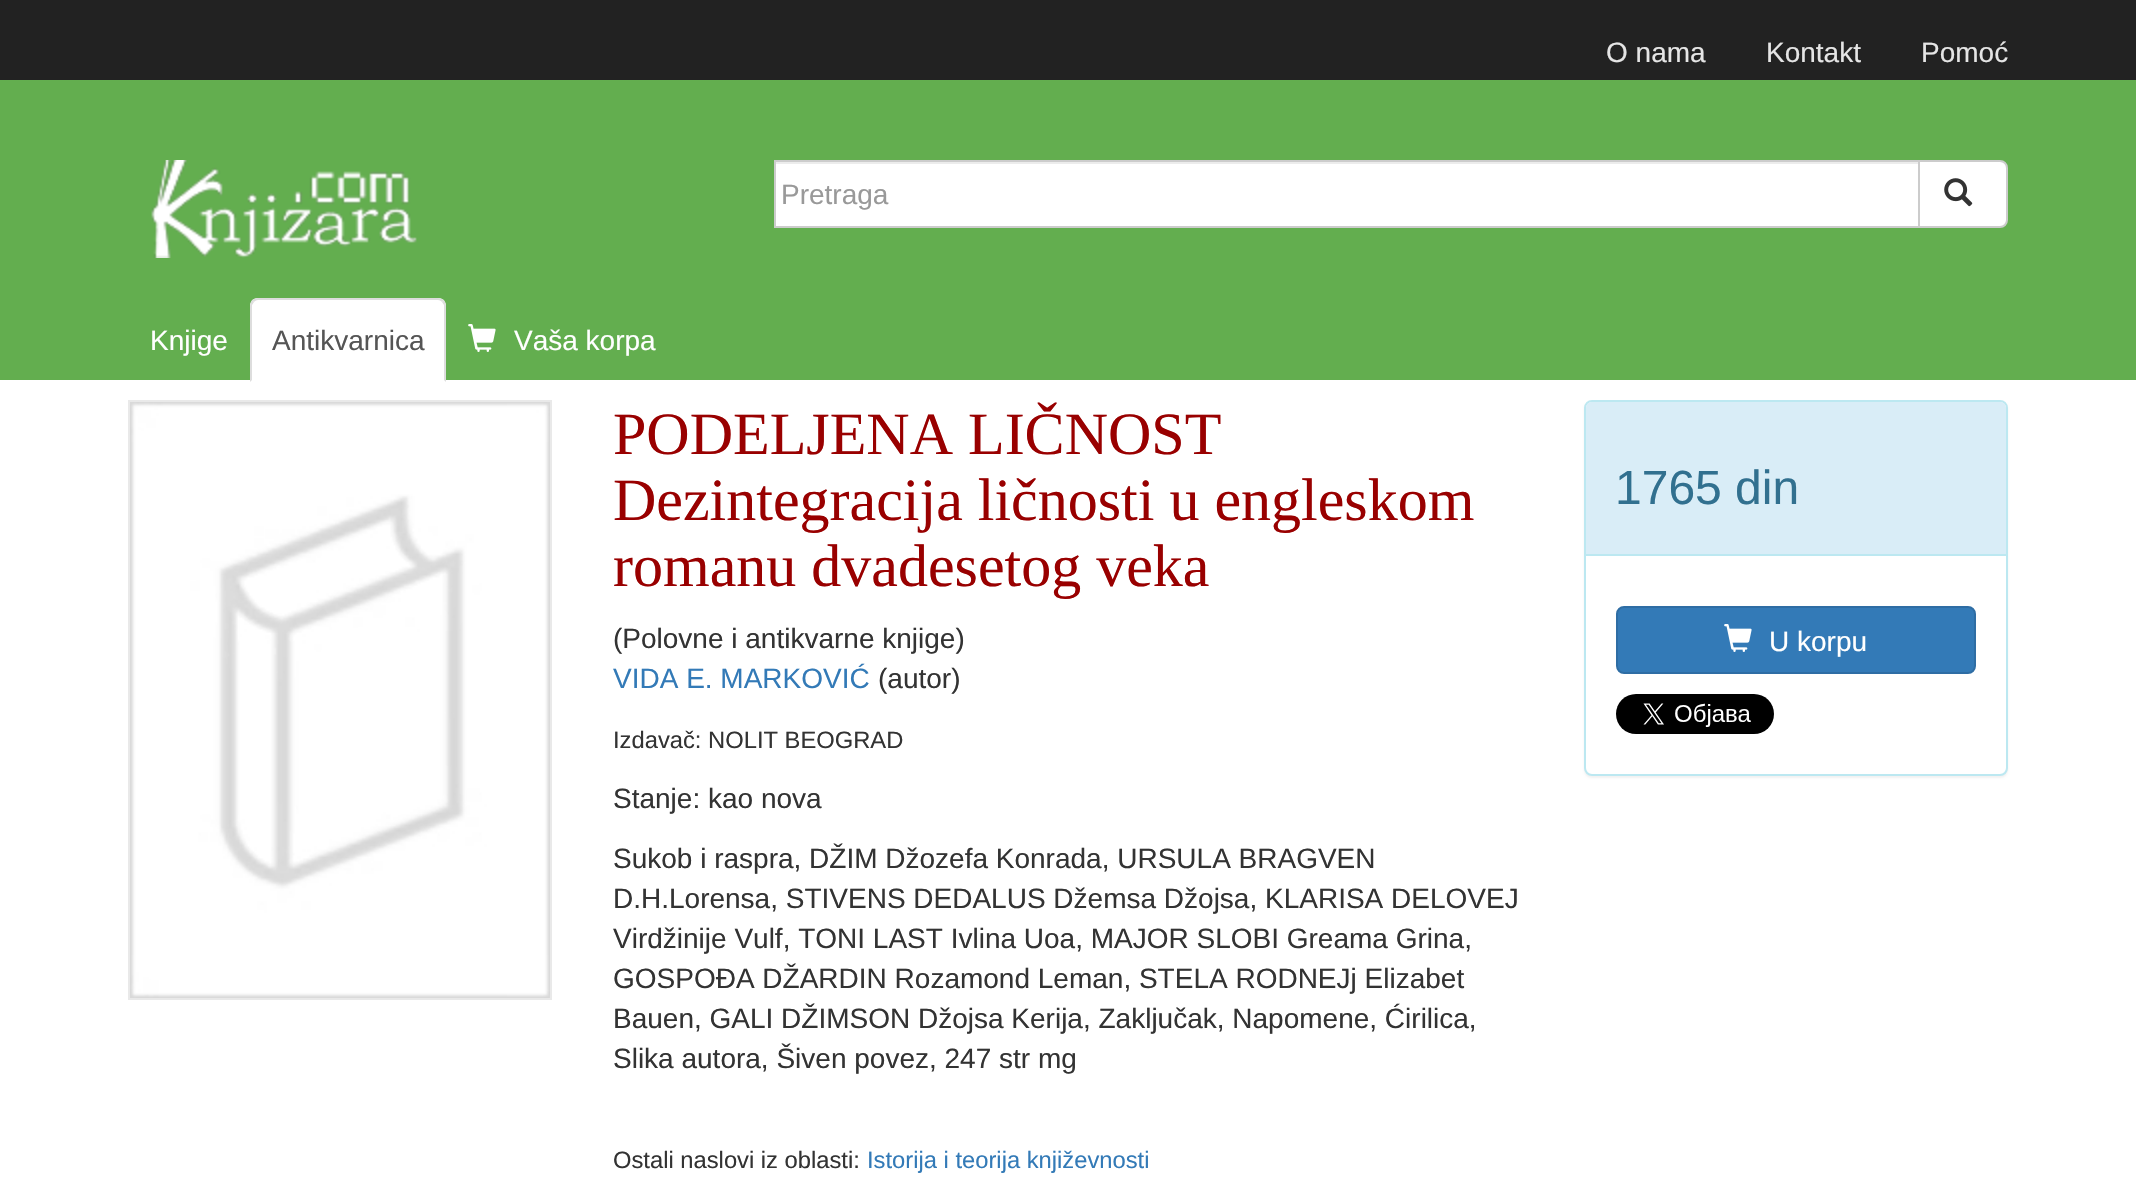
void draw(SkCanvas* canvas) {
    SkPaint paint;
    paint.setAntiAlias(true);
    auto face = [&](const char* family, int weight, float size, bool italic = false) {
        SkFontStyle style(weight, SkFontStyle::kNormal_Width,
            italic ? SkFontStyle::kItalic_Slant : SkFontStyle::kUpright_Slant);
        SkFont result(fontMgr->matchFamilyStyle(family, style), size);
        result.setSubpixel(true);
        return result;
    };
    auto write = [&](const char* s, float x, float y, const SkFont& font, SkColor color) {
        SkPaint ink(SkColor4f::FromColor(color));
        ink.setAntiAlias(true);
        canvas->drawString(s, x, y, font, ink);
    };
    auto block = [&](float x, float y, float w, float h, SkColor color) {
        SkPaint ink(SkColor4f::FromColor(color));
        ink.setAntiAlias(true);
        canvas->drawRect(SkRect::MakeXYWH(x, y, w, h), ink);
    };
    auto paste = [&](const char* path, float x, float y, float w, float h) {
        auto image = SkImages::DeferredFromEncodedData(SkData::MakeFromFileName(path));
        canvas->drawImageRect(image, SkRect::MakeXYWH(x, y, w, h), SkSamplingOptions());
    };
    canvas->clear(SK_ColorWHITE);
    block(0, 0, 2136, 80, SkColorSetRGB(34, 34, 34));
    auto kFont1 = face("Liberation Sans", 400, 28);
    write("O nama", 1606, 62, kFont1, SkColorSetRGB(229, 229, 229));
    write("Kontakt", 1766, 62, kFont1, SkColorSetRGB(229, 229, 229));
    write("Pomoć", 1921, 62, kFont1, SkColorSetRGB(229, 229, 229));
    block(0, 80, 2136, 300, SkColorSetRGB(99, 174, 79));
    paste("pic1.png", 151, 160, 266, 98);
    block(776, 164, 1142, 62, SK_ColorWHITE);
    block(776, 162, 1142, 2, SkColorSetRGB(236, 236, 236));
    paint.setColor(SK_ColorWHITE);
    canvas->drawPath(SkPathBuilder().moveTo(1919, 161).lineTo(2000, 161).cubicTo(2004, 161, 2007, 164, 2007, 168).lineTo(2007, 220).cubicTo(2007, 224, 2004, 227, 2000, 227).lineTo(1919, 227).close().detach(), paint);
    paint.setStyle(SkPaint::kStroke_Style);
    paint.setStrokeWidth(2);
    paint.setColor(SkColorSetRGB(204, 204, 204));
    canvas->drawPath(SkPathBuilder().moveTo(1919, 161).lineTo(2000, 161).cubicTo(2004, 161, 2007, 164, 2007, 168).lineTo(2007, 220).cubicTo(2007, 224, 2004, 227, 2000, 227).lineTo(1919, 227).close().detach(), paint);
    canvas->drawRect(SkRect::MakeXYWH(775, 161, 1144, 66), paint);
    write("Pretraga", 781, 204, kFont1, SkColorSetRGB(153, 153, 153));
    paste("pic2.png", 1944, 178, 29, 29);
    write("Knjige", 150, 350, kFont1, SK_ColorWHITE);
    paint.setStyle(SkPaint::kFill_Style);
    paint.setColor(SK_ColorWHITE);
    canvas->drawPath(SkPathBuilder().moveTo(258, 298).lineTo(438, 298).cubicTo(442.5f, 298, 446, 301.5f, 446, 306).lineTo(446, 382).lineTo(250, 382).lineTo(250, 306).cubicTo(250, 301.5f, 253.5f, 298, 258, 298).close().detach(), paint);
    paint.setColor(SkColorSetRGB(221, 221, 221));
    canvas->drawPath(SkPathBuilder().moveTo(258, 298).cubicTo(256, 298, 254, 299, 252, 300).lineTo(254, 302).cubicTo(255, 301, 256, 300, 258, 300).lineTo(438, 300).cubicTo(440, 300, 441, 301, 442, 302).lineTo(444, 300).cubicTo(442, 299, 440, 298, 438, 298).close().detach(), paint);
    canvas->drawPath(SkPathBuilder().moveTo(446, 382).lineTo(446, 306).cubicTo(446, 304, 445, 302, 444, 300).lineTo(442, 302).lineTo(444, 305).lineTo(444, 380).close().detach(), paint);
    canvas->drawPath(SkPathBuilder().moveTo(250, 382).lineTo(252, 380).lineTo(252, 305).lineTo(254, 302).lineTo(252, 300).cubicTo(251, 302, 250, 304, 250, 306).close().detach(), paint);
    write("Antikvarnica", 272, 350, kFont1, SkColorSetRGB(85, 85, 85));
    paste("pic3.png", 468, 324, 28, 28);
    write("Vaša korpa", 514, 350, kFont1, SK_ColorWHITE);
    paint.setStyle(SkPaint::kStroke_Style);
    paint.setColor(SkColorSetRGB(233, 233, 233));
    canvas->drawRect(SkRect::MakeXYWH(129, 401, 422, 598), paint);
    paste("pic4.png", 130, 402, 420, 596);
    auto kFont2 = face("Liberation Serif", 400, 60);
    write("PODELJENA LIČNOST", 613, 454, kFont2, SkColorSetRGB(153, 0, 0));
    write("Dezintegracija ličnosti u engleskom", 613, 520, kFont2, SkColorSetRGB(153, 0, 0));
    write("romanu dvadesetog veka", 613, 586, kFont2, SkColorSetRGB(153, 0, 0));
    write("(Polovne i antikvarne knjige)", 613, 648, kFont1, SkColorSetRGB(51, 51, 51));
    write("VIDA E. MARKOVIĆ", 613, 688, kFont1, SkColorSetRGB(51, 122, 183));
    write("(autor)", 878, 688, kFont1, SkColorSetRGB(51, 51, 51));
    auto kFont3 = face("Liberation Sans", 400, 23.75f);
    write("Izdavač: NOLIT BEOGRAD", 613, 748, kFont3, SkColorSetRGB(51, 51, 51));
    write("Stanje: kao nova", 613, 808, kFont1, SkColorSetRGB(51, 51, 51));
    write("Sukob i raspra, DŽIM Džozefa Konrada, URSULA BRAGVEN", 613, 868, kFont1, SkColorSetRGB(51, 51, 51));
    write("D.H.Lorensa, STIVENS DEDALUS Džemsa Džojsa, KLARISA DELOVEJ", 613, 908, kFont1, SkColorSetRGB(51, 51, 51));
    write("Virdžinije Vulf, TONI LAST Ivlina Uoa, MAJOR SLOBI Greama Grina,", 613, 948, kFont1, SkColorSetRGB(51, 51, 51));
    write("GOSPOĐA DŽARDIN Rozamond Leman, STELA RODNEJj Elizabet", 613, 988, kFont1, SkColorSetRGB(51, 51, 51));
    write("Bauen, GALI DŽIMSON Džojsa Kerija, Zaključak, Napomene, Ćirilica,", 613, 1028, kFont1, SkColorSetRGB(51, 51, 51));
    write("Slika autora, Šiven povez, 247 str mg", 613, 1068, kFont1, SkColorSetRGB(51, 51, 51));
    write("Ostali naslovi iz oblasti:", 613, 1168, kFont3, SkColorSetRGB(51, 51, 51));
    write("Istorija i teorija književnosti", 867, 1168, kFont3, SkColorSetRGB(51, 122, 183));
    paint.setStyle(SkPaint::kFill_Style);
    paint.setColor(SkColorSetARGB(13, 0, 0, 0));
    paint.setMaskFilter(SkMaskFilter::MakeBlur(kNormal_SkBlurStyle, 1));
    canvas->drawRoundRect(SkRect::MakeXYWH(1584, 402, 424, 376), 8, 8, paint);
    paint.setMaskFilter(nullptr);
    paint.setColor(SK_ColorWHITE);
    canvas->drawRoundRect(SkRect::MakeXYWH(1585, 401, 422, 374), 7, 7, paint);
    paint.setStyle(SkPaint::kStroke_Style);
    paint.setColor(SkColorSetRGB(188, 232, 241));
    canvas->drawRoundRect(SkRect::MakeXYWH(1585, 401, 422, 374), 7, 7, paint);
    paint.setStyle(SkPaint::kFill_Style);
    paint.setColor(SkColorSetRGB(217, 237, 247));
    canvas->drawPath(SkPathBuilder().moveTo(1592, 402).lineTo(2000, 402).cubicTo(2003.5f, 402, 2006, 404.5f, 2006, 408).lineTo(2006, 556).lineTo(1586, 556).lineTo(1586, 408).cubicTo(1586, 404.5f, 1588.5f, 402, 1592, 402).close().detach(), paint);
    block(1586, 554, 420, 2, SkColorSetRGB(188, 232, 241));
    auto kFont4 = face("Liberation Sans", 400, 48);
    write("1765 din", 1615, 504, kFont4, SkColorSetRGB(49, 112, 143));
    paint.setColor(SkColorSetRGB(51, 122, 183));
    canvas->drawRoundRect(SkRect::MakeXYWH(1617, 607, 358, 66), 7, 7, paint);
    paint.setStyle(SkPaint::kStroke_Style);
    paint.setColor(SkColorSetRGB(46, 109, 164));
    canvas->drawRoundRect(SkRect::MakeXYWH(1617, 607, 358, 66), 7, 7, paint);
    paste("pic5.png", 1724, 624, 28, 28);
    write("U korpu", 1769, 651, kFont1, SK_ColorWHITE);
    paste("pic6.png", 1616, 694, 158, 40);
}
